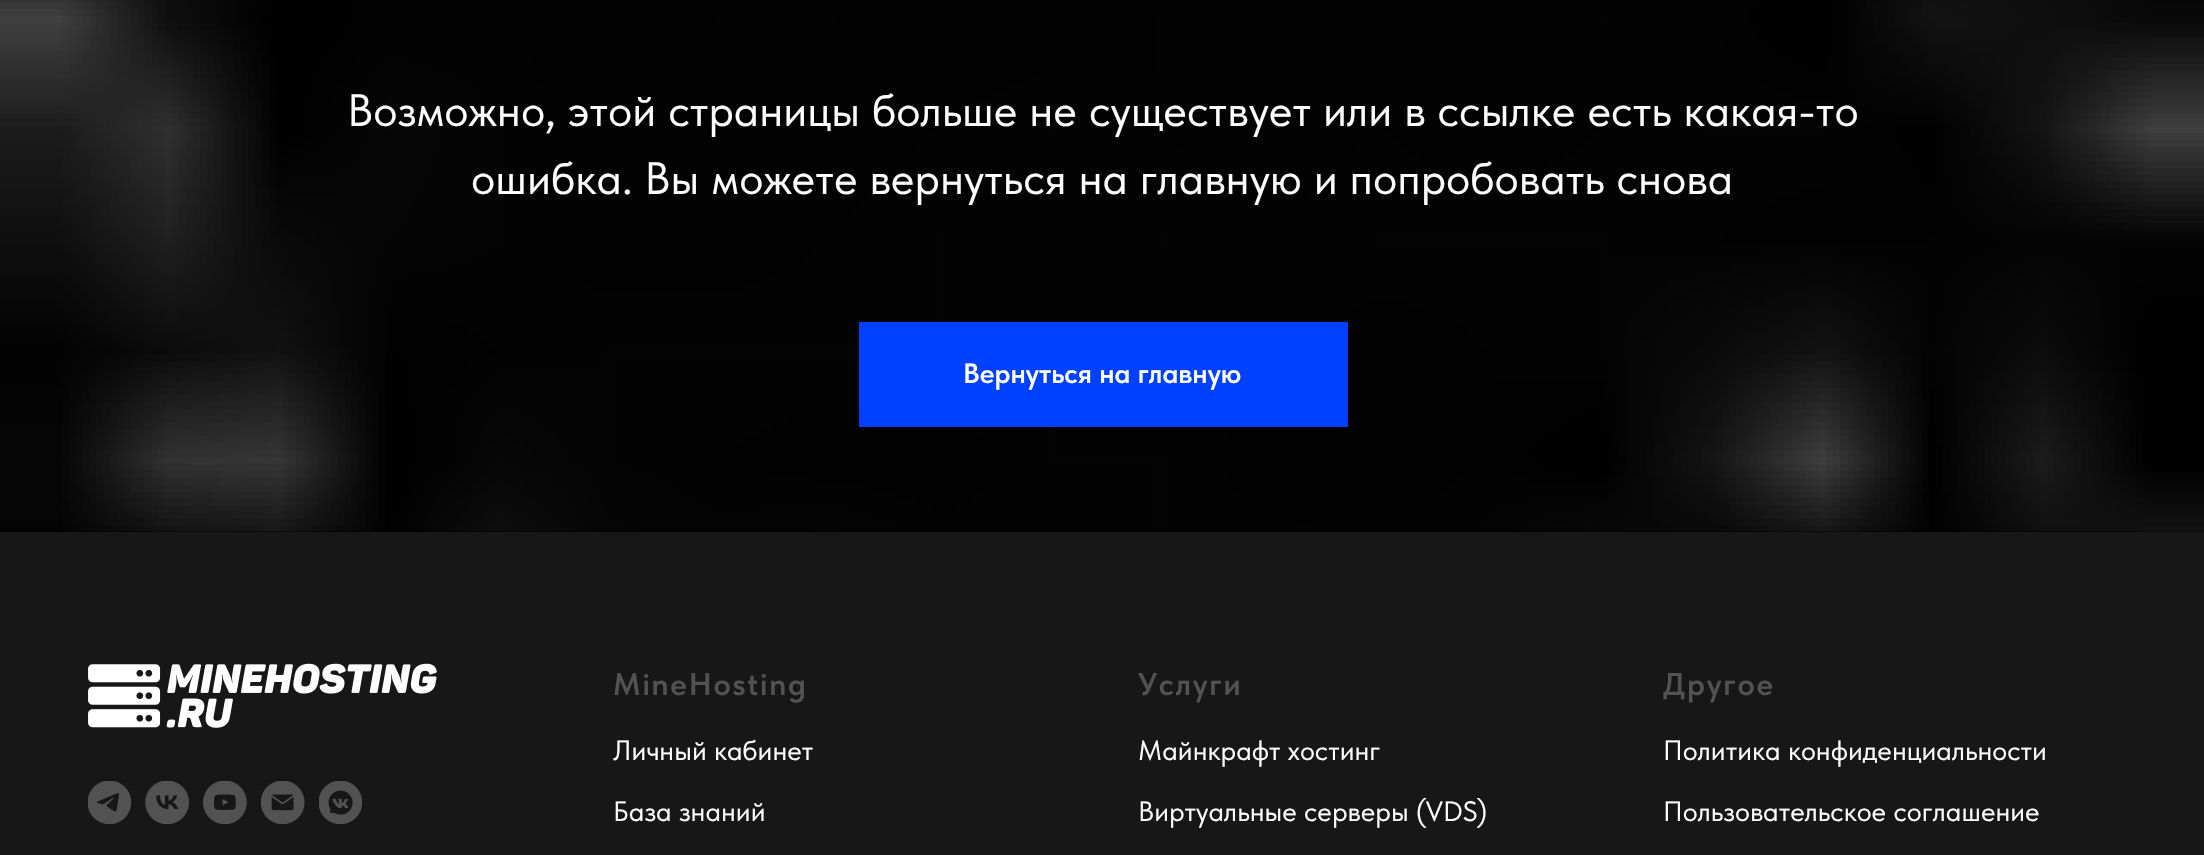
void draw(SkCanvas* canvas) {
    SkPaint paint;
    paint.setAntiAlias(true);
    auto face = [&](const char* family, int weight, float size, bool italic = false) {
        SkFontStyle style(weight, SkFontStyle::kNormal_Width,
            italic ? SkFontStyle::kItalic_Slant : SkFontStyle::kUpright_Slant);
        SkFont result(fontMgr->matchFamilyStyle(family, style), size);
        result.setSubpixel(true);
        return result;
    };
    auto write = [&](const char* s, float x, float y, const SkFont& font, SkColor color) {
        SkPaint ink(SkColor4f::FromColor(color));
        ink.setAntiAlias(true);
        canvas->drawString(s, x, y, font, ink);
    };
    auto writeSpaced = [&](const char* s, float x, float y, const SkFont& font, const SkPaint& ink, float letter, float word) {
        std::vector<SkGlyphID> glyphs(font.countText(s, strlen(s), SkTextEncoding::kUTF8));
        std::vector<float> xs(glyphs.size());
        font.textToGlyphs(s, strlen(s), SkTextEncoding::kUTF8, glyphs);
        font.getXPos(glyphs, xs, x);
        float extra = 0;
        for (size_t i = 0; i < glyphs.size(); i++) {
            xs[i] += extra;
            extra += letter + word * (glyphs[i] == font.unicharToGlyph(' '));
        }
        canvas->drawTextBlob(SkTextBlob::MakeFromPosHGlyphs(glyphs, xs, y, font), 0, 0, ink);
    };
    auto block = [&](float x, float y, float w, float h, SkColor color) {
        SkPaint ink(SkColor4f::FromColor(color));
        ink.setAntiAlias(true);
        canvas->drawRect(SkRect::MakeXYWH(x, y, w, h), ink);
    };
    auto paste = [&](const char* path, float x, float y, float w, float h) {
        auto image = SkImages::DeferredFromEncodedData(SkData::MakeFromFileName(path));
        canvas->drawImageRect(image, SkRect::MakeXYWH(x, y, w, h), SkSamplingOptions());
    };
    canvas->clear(SkColorSetRGB(23, 23, 23));
    block(0, 531, 2204, 1, SK_ColorBLACK);
    paste("pic1.png", 0, 0, 2204, 532);
    auto kFont1 = face("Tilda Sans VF", 400, 45.5f);
    write("Возможно, этой страницы больше не существует или в ссылке есть какая-то", 347, 126, kFont1, SK_ColorWHITE);
    write("ошибка. Вы можете вернуться на главную и попробовать снова", 471, 194, kFont1, SK_ColorWHITE);
    block(859, 322, 489, 105, SkColorSetRGB(0, 64, 255));
    auto kFont2 = face("Tilda Sans VF", 600, 28);
    write("Вернуться на главную", 963, 383, kFont2, SK_ColorWHITE);
    paste("pic2.png", 88, 663, 349, 65);
    paste("pic3.png", 88, 781, 43, 43);
    paste("pic4.png", 145, 781, 44, 43);
    paste("pic5.png", 203, 781, 44, 43);
    paste("pic6.png", 261, 781, 44, 43);
    paste("pic7.png", 319, 781, 43, 43);
    auto kFont3 = face("Tilda Sans VF", 600, 31.5f);
    paint.setColor(SkColorSetRGB(82, 82, 82));
    writeSpaced("MineHosting", 613, 695, kFont3, paint, 1.75f, 0);
    auto kFont4 = face("Tilda Sans VF", 400, 28);
    write("Личный кабинет", 613, 760, kFont4, SK_ColorWHITE);
    write("База знаний", 613, 821, kFont4, SK_ColorWHITE);
    writeSpaced("Услуги", 1138, 695, kFont3, paint, 1.75f, 0);
    write("Майнкрафт хостинг", 1138, 760, kFont4, SK_ColorWHITE);
    write("Виртуальные серверы (VDS)", 1138, 821, kFont4, SK_ColorWHITE);
    writeSpaced("Другое", 1663, 695, kFont3, paint, 1.75f, 0);
    write("Политика конфиденциальности", 1663, 760, kFont4, SK_ColorWHITE);
    write("Пользовательское соглашение", 1663, 821, kFont4, SK_ColorWHITE);
}
